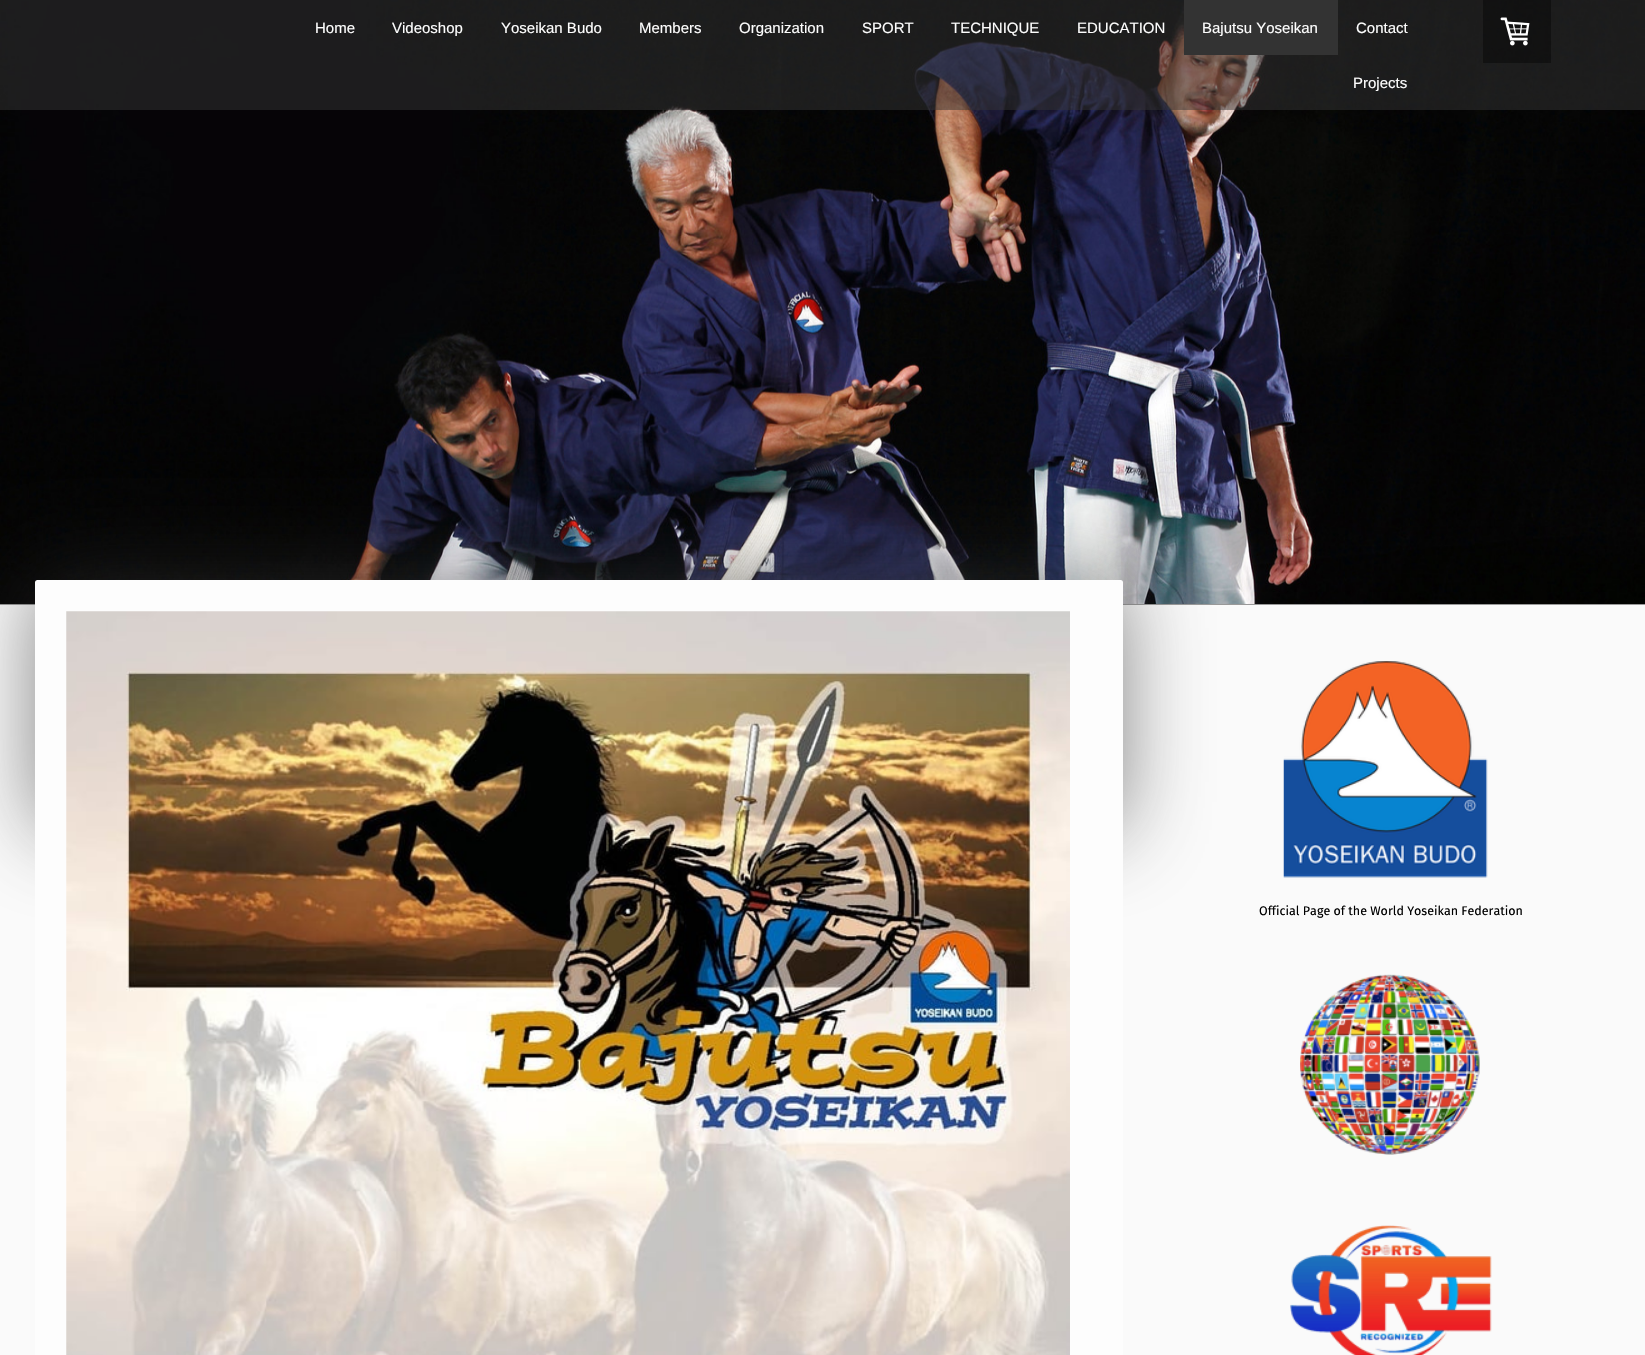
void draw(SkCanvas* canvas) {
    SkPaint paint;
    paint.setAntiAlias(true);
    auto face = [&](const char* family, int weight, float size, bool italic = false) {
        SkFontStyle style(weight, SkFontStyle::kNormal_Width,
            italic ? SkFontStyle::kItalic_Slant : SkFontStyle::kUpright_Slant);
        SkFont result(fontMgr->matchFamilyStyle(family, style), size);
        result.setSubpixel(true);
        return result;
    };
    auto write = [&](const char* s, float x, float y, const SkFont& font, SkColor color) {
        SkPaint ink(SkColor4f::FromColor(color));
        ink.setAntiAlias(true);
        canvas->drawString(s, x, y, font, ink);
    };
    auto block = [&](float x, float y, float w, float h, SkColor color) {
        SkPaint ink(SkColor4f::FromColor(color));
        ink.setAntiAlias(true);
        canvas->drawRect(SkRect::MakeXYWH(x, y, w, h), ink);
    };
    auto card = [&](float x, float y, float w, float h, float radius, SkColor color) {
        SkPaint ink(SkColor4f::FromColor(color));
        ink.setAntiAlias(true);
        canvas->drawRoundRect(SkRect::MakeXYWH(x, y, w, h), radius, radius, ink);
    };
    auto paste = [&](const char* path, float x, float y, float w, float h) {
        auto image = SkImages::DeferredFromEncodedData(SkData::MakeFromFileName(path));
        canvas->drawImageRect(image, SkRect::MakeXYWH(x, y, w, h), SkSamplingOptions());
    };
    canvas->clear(SK_ColorWHITE);
    paste("pic1.png", 0, 0, 1645, 604);
    block(0, 0, 1645, 110, SkColorSetARGB(128, 51, 51, 51));
    auto kFont1 = face("Liberation Sans", 400, 15);
    write("Home", 315, 33, kFont1, SkColorSetRGB(253, 253, 253));
    write("Videoshop", 392, 33, kFont1, SkColorSetRGB(253, 253, 253));
    write("Yoseikan Budo", 501, 33, kFont1, SkColorSetRGB(253, 253, 253));
    write("Members", 639, 33, kFont1, SkColorSetRGB(253, 253, 253));
    write("Organization", 739, 33, kFont1, SkColorSetRGB(253, 253, 253));
    write("SPORT", 862, 33, kFont1, SkColorSetRGB(253, 253, 253));
    write("TECHNIQUE", 951, 33, kFont1, SkColorSetRGB(253, 253, 253));
    write("EDUCATION", 1077, 33, kFont1, SkColorSetRGB(253, 253, 253));
    block(1184, 0, 154, 55, SkColorSetRGB(51, 51, 51));
    write("Bajutsu Yoseikan", 1202, 33, kFont1, SkColorSetRGB(253, 253, 253));
    write("Contact", 1356, 33, kFont1, SkColorSetRGB(253, 253, 253));
    write("Projects", 1353, 88, kFont1, SkColorSetRGB(253, 253, 253));
    block(1483, 0, 68, 63, SkColorSetARGB(102, 0, 0, 0));
    paste("pic2.png", 1500, 17, 30, 29);
    block(0, 605, 1645, 750, SkColorSetRGB(250, 250, 250));
    block(0, 604, 1645, 1, SkColorSetRGB(153, 153, 153));
    paint.setColor(SkColorSetARGB(153, 51, 51, 51));
    paint.setMaskFilter(SkMaskFilter::MakeBlur(kNormal_SkBlurStyle, 42.5f));
    canvas->drawRect(SkRect::MakeXYWH(35, 580, 1088, 250), paint);
    paint.setMaskFilter(nullptr);
    card(35, 580, 1088, 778, 2.5f, SkColorSetRGB(253, 253, 253));
    paste("pic3.png", 66, 611, 1004, 744);
    paste("pic4.png", 1283, 661, 205, 217);
    auto kFont2 = face("Fira Sans", 400, 12.5f);
    write("Official Page of the World Yoseikan Federation", 1259, 915, kFont2, SK_ColorBLACK);
    paste("pic5.png", 1300, 974, 180, 181);
    paste("pic6.png", 1290, 1225, 202, 130);
}
